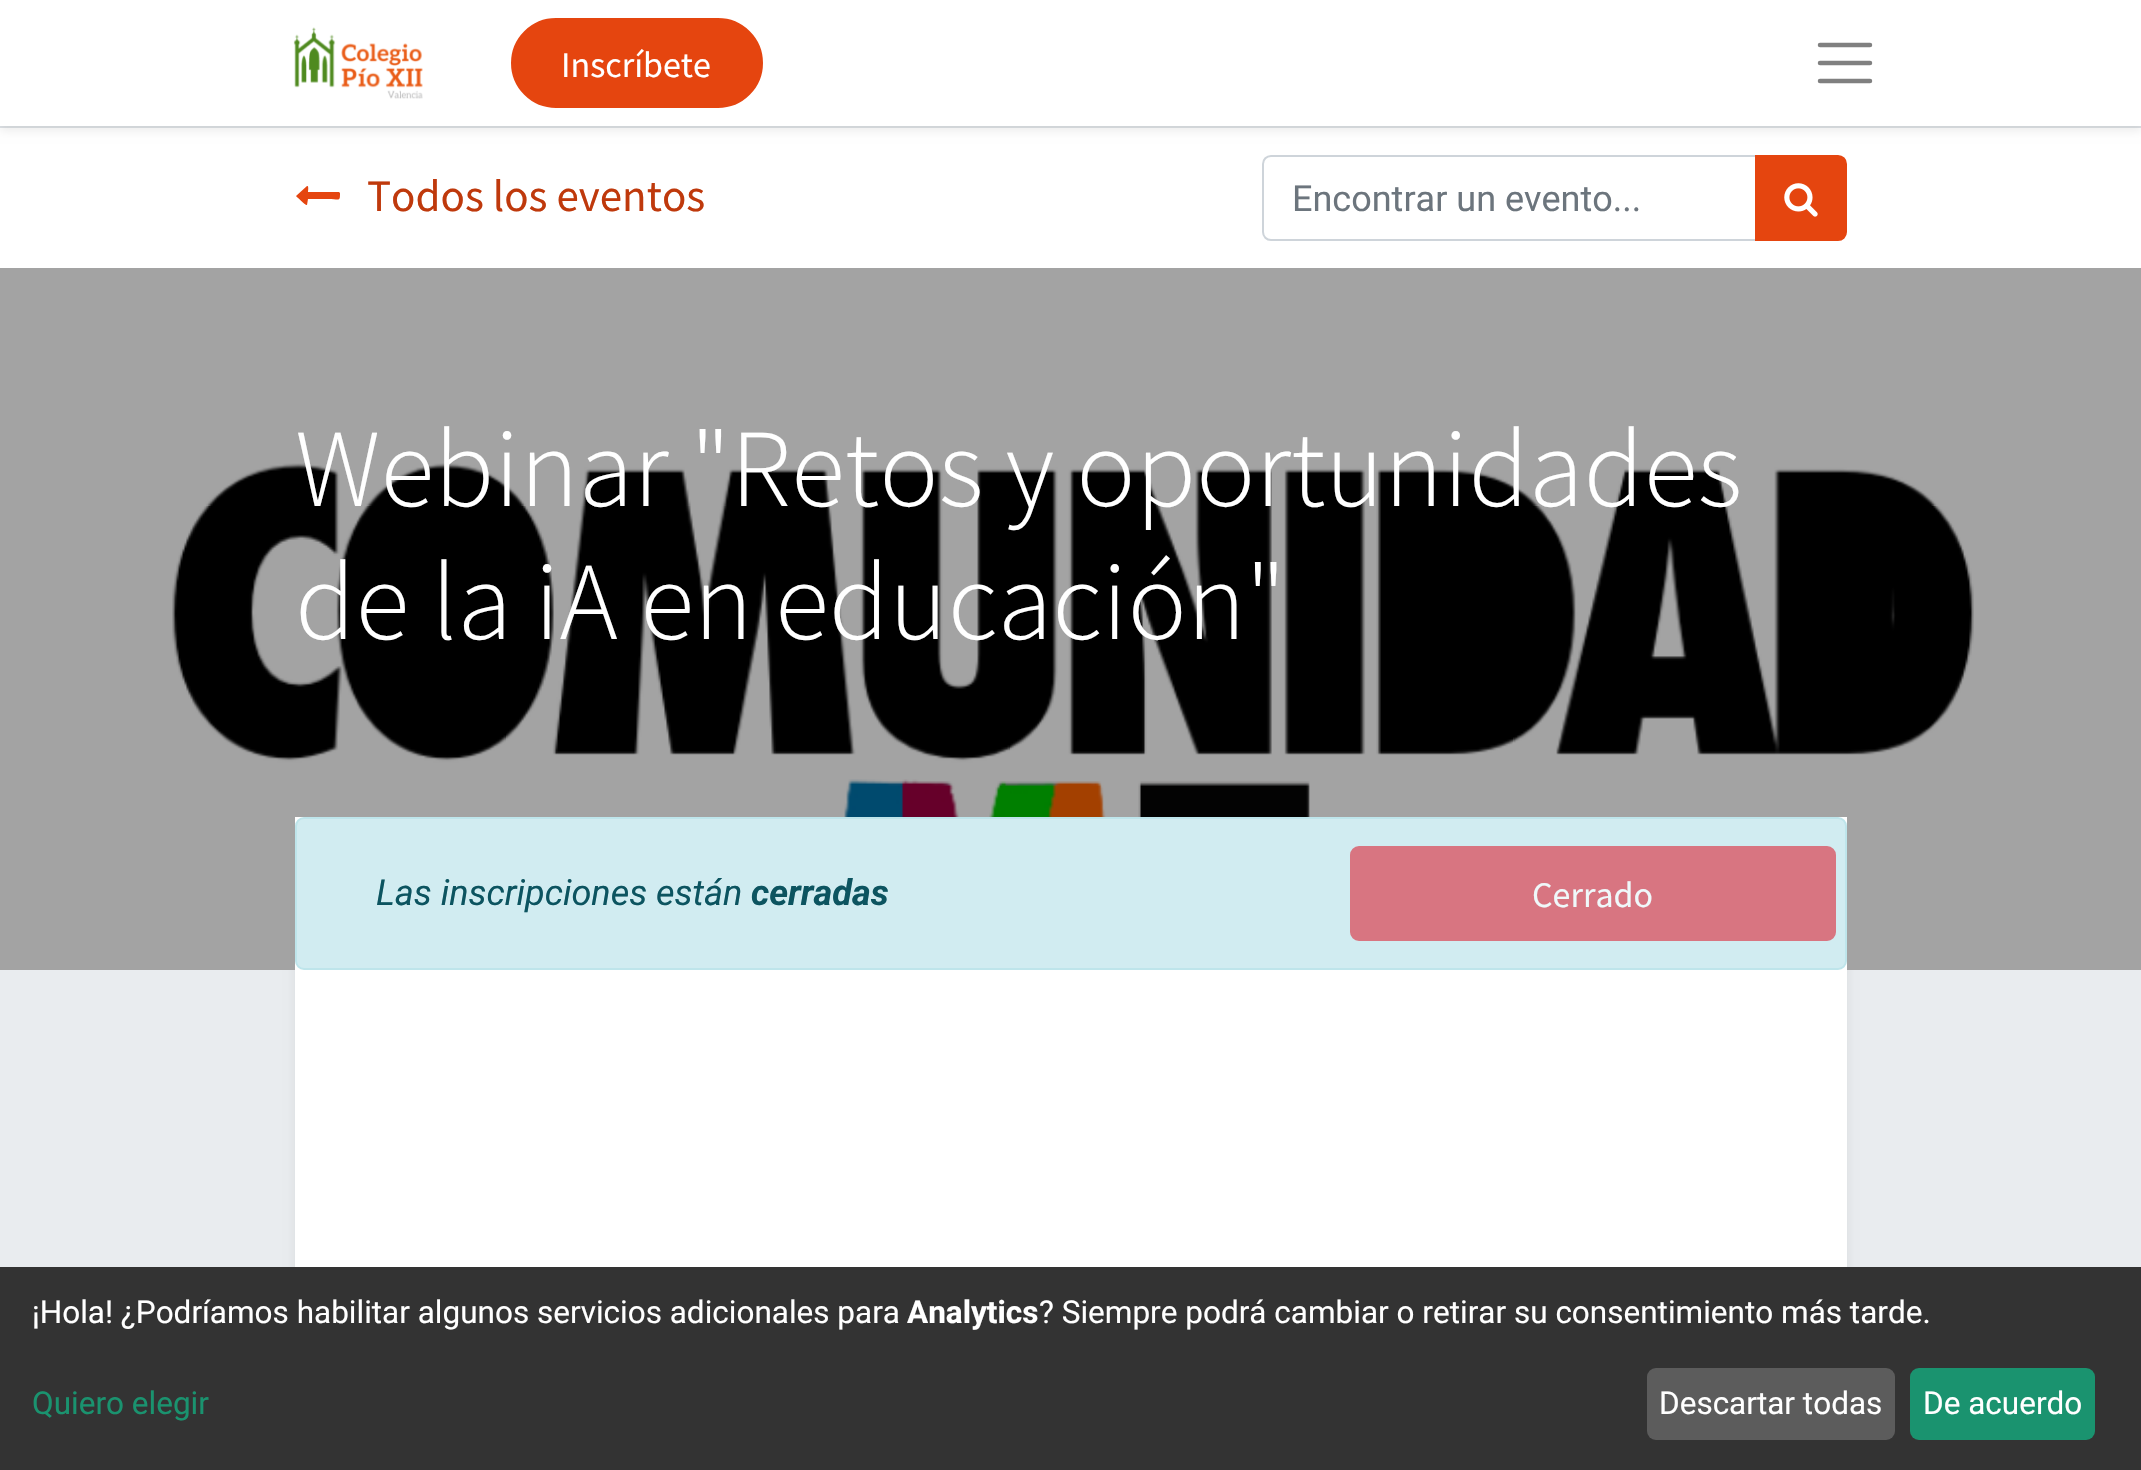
void draw(SkCanvas* canvas) {
    SkPaint paint;
    paint.setAntiAlias(true);
    auto face = [&](const char* family, int weight, float size, bool italic = false) {
        SkFontStyle style(weight, SkFontStyle::kNormal_Width,
            italic ? SkFontStyle::kItalic_Slant : SkFontStyle::kUpright_Slant);
        SkFont result(fontMgr->matchFamilyStyle(family, style), size);
        result.setSubpixel(true);
        return result;
    };
    auto write = [&](const char* s, float x, float y, const SkFont& font, SkColor color) {
        SkPaint ink(SkColor4f::FromColor(color));
        ink.setAntiAlias(true);
        canvas->drawString(s, x, y, font, ink);
    };
    auto block = [&](float x, float y, float w, float h, SkColor color) {
        SkPaint ink(SkColor4f::FromColor(color));
        ink.setAntiAlias(true);
        canvas->drawRect(SkRect::MakeXYWH(x, y, w, h), ink);
    };
    auto card = [&](float x, float y, float w, float h, float radius, SkColor color) {
        SkPaint ink(SkColor4f::FromColor(color));
        ink.setAntiAlias(true);
        canvas->drawRoundRect(SkRect::MakeXYWH(x, y, w, h), radius, radius, ink);
    };
    auto paste = [&](const char* path, float x, float y, float w, float h) {
        auto image = SkImages::DeferredFromEncodedData(SkData::MakeFromFileName(path));
        canvas->drawImageRect(image, SkRect::MakeXYWH(x, y, w, h), SkSamplingOptions());
    };
    canvas->clear(SK_ColorWHITE);
    block(0, 126, 2141, 2, SkColorSetRGB(222, 226, 230));
    paint.setColor(SkColorSetARGB(18, 0, 0, 0));
    paint.setMaskFilter(SkMaskFilter::MakeBlur(kNormal_SkBlurStyle, 4.5f));
    canvas->drawRect(SkRect::MakeXYWH(0, 5, 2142, 126), paint);
    paint.setMaskFilter(nullptr);
    block(0, 0, 2141, 126, SK_ColorWHITE);
    paste("pic1.png", 293, 27, 130, 72);
    paint.setColor(SkColorSetRGB(229, 69, 15));
    canvas->drawRoundRect(SkRect::MakeXYWH(512, 19, 250, 88), 44, 44, paint);
    paint.setStyle(SkPaint::kStroke_Style);
    paint.setStrokeWidth(2);
    canvas->drawRoundRect(SkRect::MakeXYWH(512, 19, 250, 88), 44, 44, paint);
    auto kFont1 = face("Source Sans Pro", 400, 36);
    write("Inscríbete", 561, 77, kFont1, SK_ColorWHITE);
    paint.setStrokeWidth(4.5f);
    paint.setStrokeCap(SkPaint::kRound_Cap);
    paint.setColor(SkColorSetRGB(128, 128, 128));
    canvas->drawPath(SkPathBuilder().moveTo(1820, 45).lineTo(1870, 45).moveTo(1820, 63).lineTo(1870, 63).moveTo(1820, 81).lineTo(1870, 81).detach(), paint);
    paint.setStyle(SkPaint::kFill_Style);
    paint.setColor(SkColorSetRGB(229, 69, 15));
    canvas->drawPath(SkPathBuilder().moveTo(340, 193).cubicTo(340, 202, 340, 199, 328, 199).lineTo(308, 199).lineTo(307, 205).cubicTo(306, 206, 296, 196, 296, 196).lineTo(307, 186).cubicTo(309, 185, 308, 191, 308, 192).lineTo(339, 192).close().detach(), paint);
    auto kFont2 = face("Source Sans Pro", 400, 45);
    write("Todos los eventos", 367, 211, kFont2, SkColorSetRGB(191, 57, 12));
    paint.setStyle(SkPaint::kStroke_Style);
    paint.setStrokeWidth(2);
    paint.setStrokeCap(SkPaint::kButt_Cap);
    paint.setColor(SkColorSetRGB(206, 212, 218));
    canvas->drawPath(SkPathBuilder().moveTo(1271, 156).lineTo(1756, 156).lineTo(1756, 240).lineTo(1271, 240).cubicTo(1266.5f, 240, 1263, 236.5f, 1263, 232).lineTo(1263, 164).cubicTo(1263, 159.5f, 1266.5f, 156, 1271, 156).close().detach(), paint);
    auto kFont3 = face("Roboto", 400, 36);
    write("Encontrar un evento...", 1292, 211, kFont3, SkColorSetRGB(108, 117, 125));
    paint.setStyle(SkPaint::kFill_Style);
    paint.setColor(SkColorSetRGB(229, 69, 15));
    canvas->drawPath(SkPathBuilder().moveTo(1756, 156).lineTo(1838, 156).cubicTo(1842.5f, 156, 1846, 159.5f, 1846, 164).lineTo(1846, 232).cubicTo(1846, 236.5f, 1842.5f, 240, 1838, 240).lineTo(1756, 240).close().detach(), paint);
    paint.setStyle(SkPaint::kStroke_Style);
    canvas->drawPath(SkPathBuilder().moveTo(1756, 156).lineTo(1838, 156).cubicTo(1842.5f, 156, 1846, 159.5f, 1846, 164).lineTo(1846, 232).cubicTo(1846, 236.5f, 1842.5f, 240, 1838, 240).lineTo(1756, 240).close().detach(), paint);
    paste("pic2.png", 1784, 183, 34, 34);
    paste("pic3.png", 172, 463, 1802, 507);
    block(0, 268, 2141, 702, SkColorSetARGB(92, 0, 0, 0));
    auto kFont4 = face("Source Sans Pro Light", 300, 111);
    write("Webinar \"Retos y oportunidades", 295, 506, kFont4, SK_ColorWHITE);
    write("de la iA en educación\"", 295, 639, kFont4, SK_ColorWHITE);
    block(295, 817, 1552, 153, SK_ColorWHITE);
    paint.setStyle(SkPaint::kFill_Style);
    paint.setColor(SkColorSetRGB(209, 236, 241));
    canvas->drawRoundRect(SkRect::MakeXYWH(296, 818, 1550, 151), 8, 8, paint);
    paint.setStyle(SkPaint::kStroke_Style);
    paint.setColor(SkColorSetRGB(190, 229, 235));
    canvas->drawRoundRect(SkRect::MakeXYWH(296, 818, 1550, 151), 8, 8, paint);
    auto kFont5 = face("Roboto", 400, 36, true);
    write("Las inscripciones están", 376, 905, kFont5, SkColorSetRGB(12, 84, 96));
    auto kFont6 = face("Roboto", 700, 36, true);
    write("cerradas", 751, 905, kFont6, SkColorSetRGB(12, 84, 96));
    paint.setStyle(SkPaint::kFill_Style);
    paint.setColor(SkColorSetRGB(216, 117, 129));
    canvas->drawRoundRect(SkRect::MakeXYWH(1351, 847, 484, 93), 8, 8, paint);
    paint.setStyle(SkPaint::kStroke_Style);
    canvas->drawRoundRect(SkRect::MakeXYWH(1351, 847, 484, 93), 8, 8, paint);
    write("Cerrado", 1532, 907, kFont1, SkColorSetRGB(239, 248, 250));
    block(0, 970, 2141, 297, SkColorSetRGB(233, 236, 239));
    canvas->save();
    canvas->clipRect(SkRect::MakeXYWH(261, 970, 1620, 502));
    paint.setStyle(SkPaint::kFill_Style);
    paint.setColor(SkColorSetARGB(18, 0, 0, 0));
    paint.setMaskFilter(SkMaskFilter::MakeBlur(kNormal_SkBlurStyle, 4.5f));
    canvas->drawRect(SkRect::MakeXYWH(295, 920, 1552, 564), paint);
    paint.setMaskFilter(nullptr);
    canvas->restore();
    block(295, 970, 1552, 297, SK_ColorWHITE);
    block(0, 1267, 2141, 203, SkColorSetRGB(51, 51, 51));
    auto kFont7 = face("Roboto", 400, 31.5f);
    write("¡Hola! ¿Podríamos habilitar algunos servicios adicionales para", 32, 1323, kFont7, SK_ColorWHITE);
    auto kFont8 = face("Roboto", 700, 31.5f);
    write("Analytics", 907, 1323, kFont8, SK_ColorWHITE);
    write("? Siempre podrá cambiar o retirar su consentimiento más tarde.", 1039, 1323, kFont7, SK_ColorWHITE);
    write("Quiero elegir", 32, 1414, kFont7, SkColorSetRGB(26, 147, 111));
    card(1647, 1368, 248, 72, 9, SkColorSetRGB(92, 92, 92));
    write("Descartar todas", 1659, 1414, kFont7, SK_ColorWHITE);
    card(1910, 1368, 185, 72, 9, SkColorSetRGB(26, 147, 111));
    write("De acuerdo", 1923, 1414, kFont7, SK_ColorWHITE);
}
